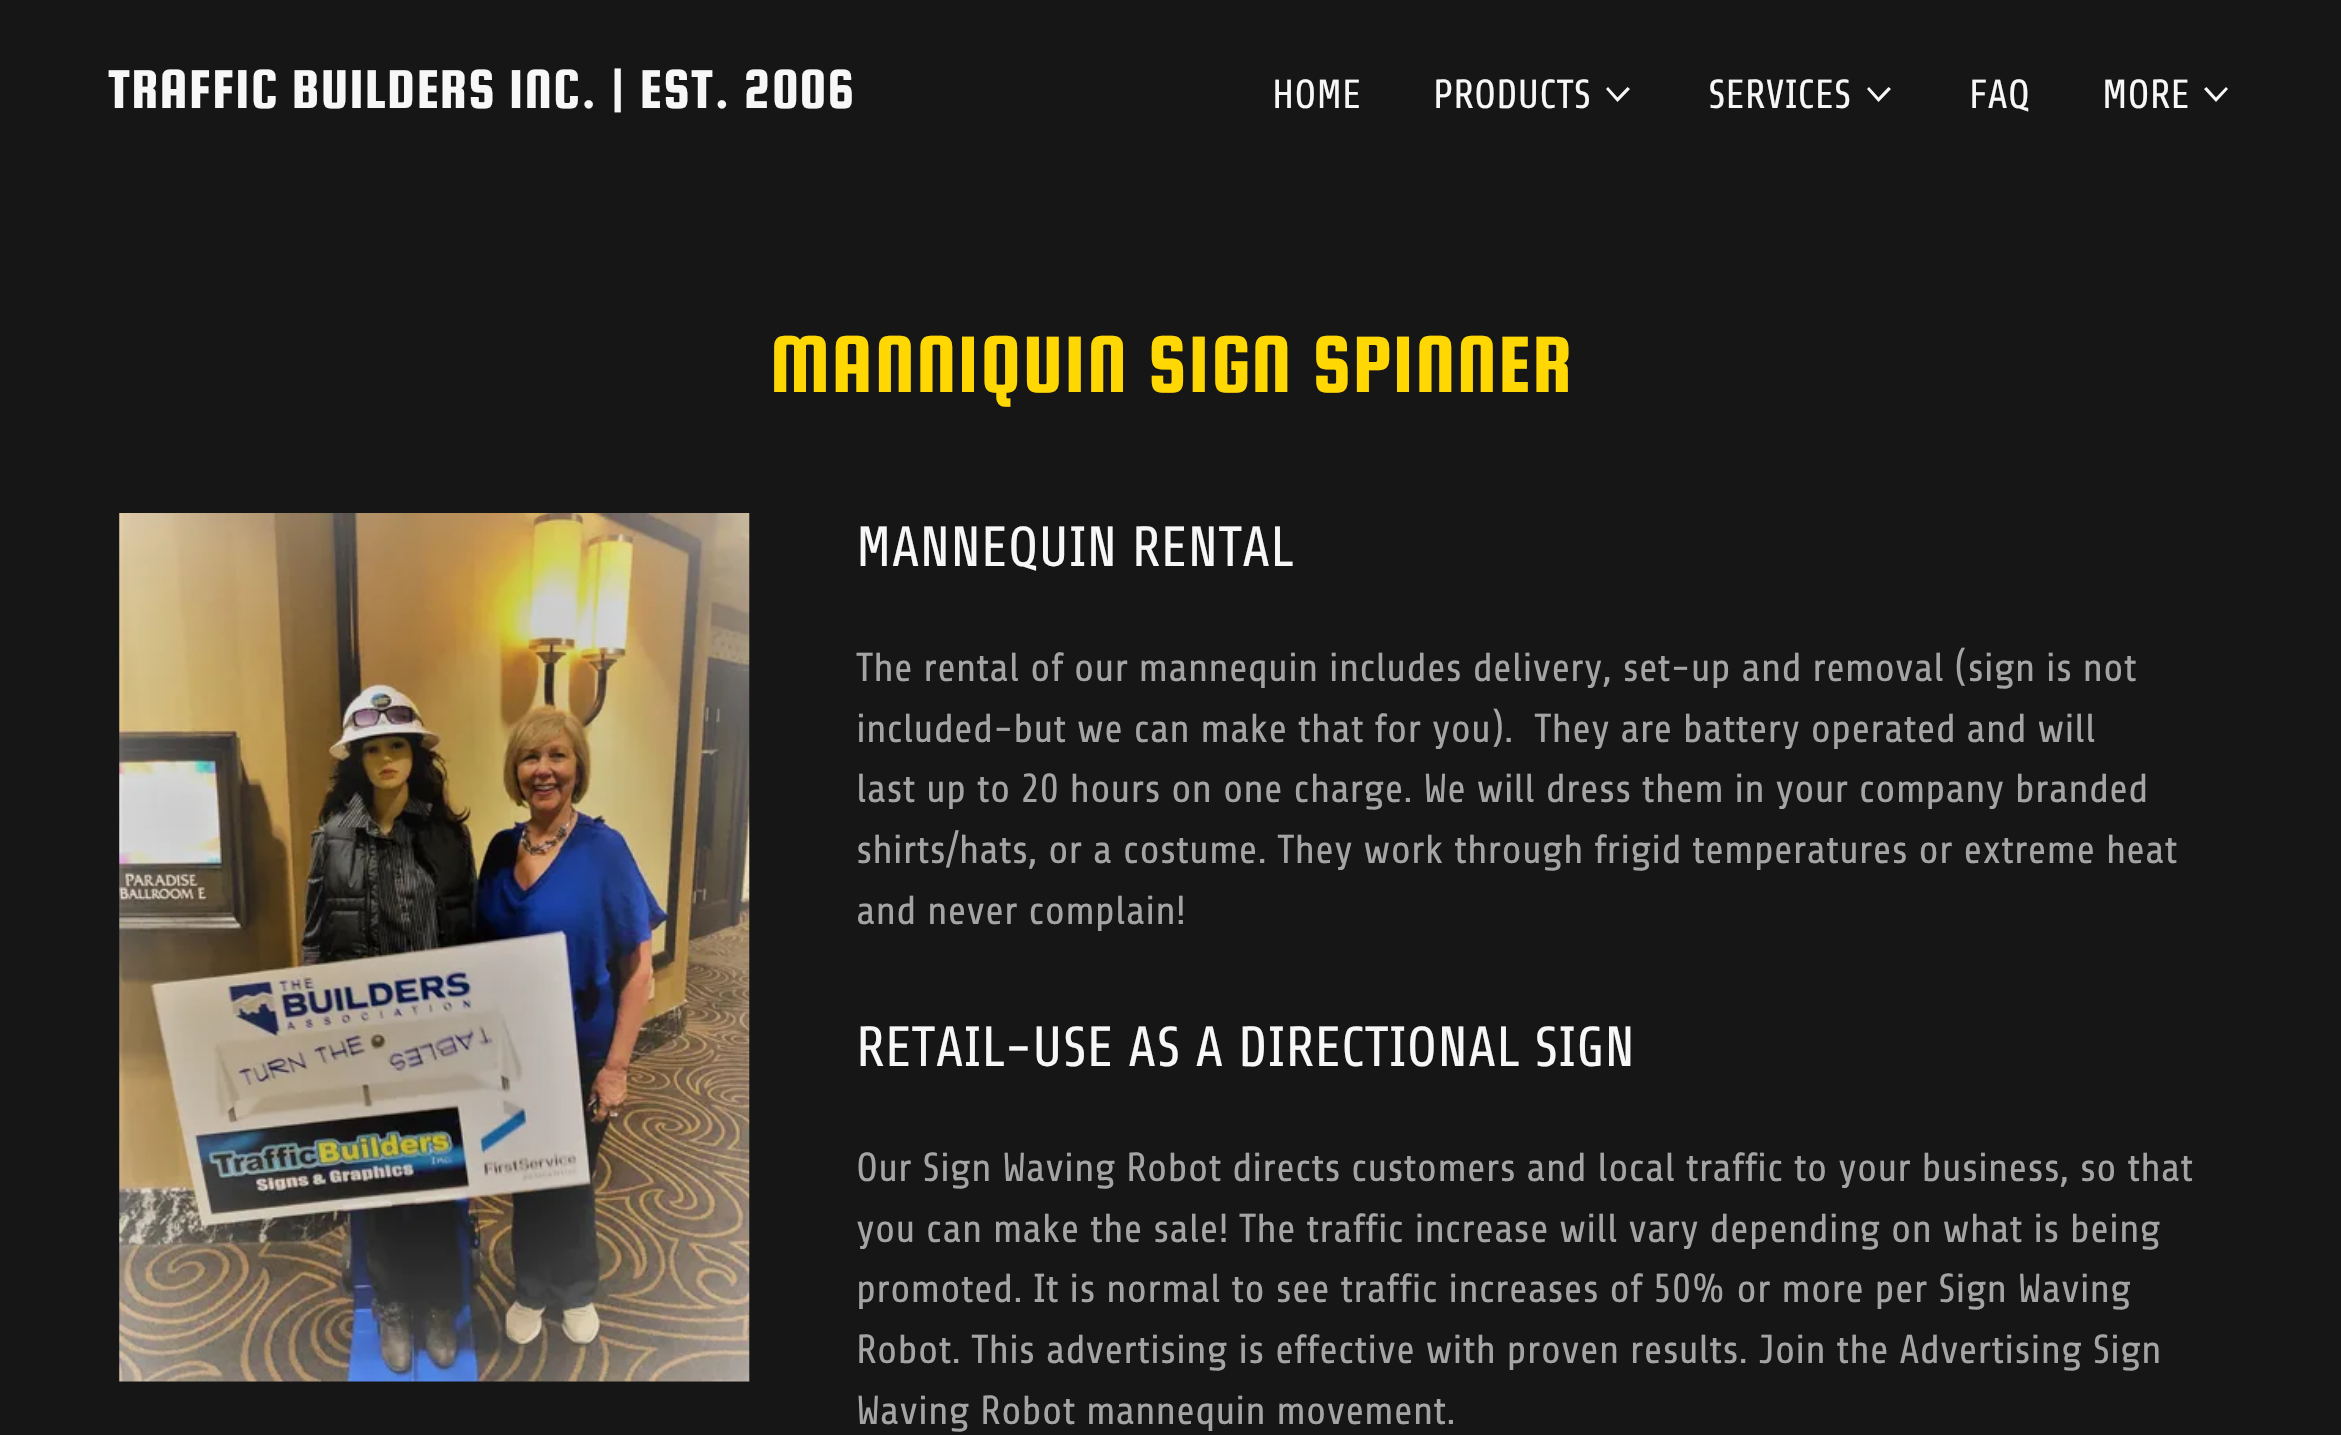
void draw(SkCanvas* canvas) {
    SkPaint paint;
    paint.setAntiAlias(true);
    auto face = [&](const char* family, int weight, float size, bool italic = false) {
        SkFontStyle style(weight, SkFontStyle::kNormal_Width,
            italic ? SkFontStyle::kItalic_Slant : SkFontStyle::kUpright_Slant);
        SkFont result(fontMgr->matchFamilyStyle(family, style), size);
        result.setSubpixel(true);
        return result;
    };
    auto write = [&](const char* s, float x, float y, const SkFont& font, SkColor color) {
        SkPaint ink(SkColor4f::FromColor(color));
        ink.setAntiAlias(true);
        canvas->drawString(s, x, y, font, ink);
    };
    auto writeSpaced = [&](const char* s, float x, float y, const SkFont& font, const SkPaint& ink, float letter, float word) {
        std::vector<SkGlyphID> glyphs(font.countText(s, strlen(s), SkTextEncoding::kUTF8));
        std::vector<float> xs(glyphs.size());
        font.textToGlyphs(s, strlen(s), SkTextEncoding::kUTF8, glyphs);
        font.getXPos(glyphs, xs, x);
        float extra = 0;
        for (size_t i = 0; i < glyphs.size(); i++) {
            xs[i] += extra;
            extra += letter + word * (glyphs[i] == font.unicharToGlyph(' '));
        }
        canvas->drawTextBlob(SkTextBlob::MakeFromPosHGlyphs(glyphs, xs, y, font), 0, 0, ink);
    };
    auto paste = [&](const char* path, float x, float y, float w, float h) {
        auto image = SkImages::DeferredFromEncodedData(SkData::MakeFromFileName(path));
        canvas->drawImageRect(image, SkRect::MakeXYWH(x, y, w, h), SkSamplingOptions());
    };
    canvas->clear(SkColorSetRGB(22, 22, 22));
    auto kFont1 = face("Squada One", 400, 58.5f);
    paint.setColor(SkColorSetRGB(247, 247, 247));
    writeSpaced("TRAFFIC BUILDERS INC. | EST. 2006", 108, 108, kFont1, paint, 1.2f, 0);
    auto kFont2 = face("Share", 400, 40.5f);
    write("HOME", 1272, 108, kFont2, SkColorSetRGB(247, 247, 247));
    write("PRODUCTS", 1433, 108, kFont2, SkColorSetRGB(247, 247, 247));
    canvas->drawPath(SkPathBuilder(SkPathFillType::kEvenOdd).moveTo(1627.5f, 87).lineTo(1617.5f, 97.5f).lineTo(1608, 87).lineTo(1606, 89).lineTo(1617.5f, 102).lineTo(1630, 89).close().detach(), paint);
    write("SERVICES", 1708, 108, kFont2, SkColorSetRGB(247, 247, 247));
    canvas->drawPath(SkPathBuilder(SkPathFillType::kEvenOdd).moveTo(1888.5f, 87).lineTo(1878.5f, 97.5f).lineTo(1869, 87).lineTo(1867, 89).lineTo(1878.5f, 102).lineTo(1891, 89).close().detach(), paint);
    write("FAQ", 1969, 108, kFont2, SkColorSetRGB(247, 247, 247));
    write("MORE", 2102, 108, kFont2, SkColorSetRGB(247, 247, 247));
    canvas->drawPath(SkPathBuilder(SkPathFillType::kEvenOdd).moveTo(2226, 87).lineTo(2216, 97.5f).lineTo(2206.5f, 87).lineTo(2204, 89).lineTo(2216, 102).lineTo(2228, 89).close().detach(), paint);
    auto kFont3 = face("Squada One", 400, 85.5f);
    paint.setColor(SkColorSetRGB(255, 215, 3));
    writeSpaced("MANNIQUIN SIGN SPINNER", 770, 392, kFont3, paint, 1.75f, 0);
    paste("pic1.png", 119, 513, 631, 869);
    auto kFont4 = face("Share", 400, 56.25f);
    write("MANNEQUIN RENTAL", 856, 566, kFont4, SkColorSetRGB(247, 247, 247));
    write("The rental of our mannequin includes delivery, set-up and removal (sign is not", 856, 681, kFont2, SkColorSetRGB(164, 164, 164));
    write("included-but we can make that for you).  They are battery operated and will", 856, 742, kFont2, SkColorSetRGB(164, 164, 164));
    write("last up to 20 hours on one charge. We will dress them in your company branded", 856, 802, kFont2, SkColorSetRGB(164, 164, 164));
    write("shirts/hats, or a costume. They work through frigid temperatures or extreme heat", 856, 863, kFont2, SkColorSetRGB(164, 164, 164));
    write("and never complain!", 856, 924, kFont2, SkColorSetRGB(164, 164, 164));
    write("RETAIL-USE AS A DIRECTIONAL SIGN", 856, 1066, kFont4, SkColorSetRGB(247, 247, 247));
    write("Our Sign Waving Robot directs customers and local traffic to your business, so that", 856, 1181, kFont2, SkColorSetRGB(164, 164, 164));
    write("you can make the sale! The traffic increase will vary depending on what is being", 856, 1242, kFont2, SkColorSetRGB(164, 164, 164));
    write("promoted. It is normal to see traffic increases of 50% or more per Sign Waving", 856, 1302, kFont2, SkColorSetRGB(164, 164, 164));
    write("Robot. This advertising is effective with proven results. Join the Advertising Sign", 856, 1363, kFont2, SkColorSetRGB(164, 164, 164));
    write("Waving Robot mannequin movement.", 856, 1424, kFont2, SkColorSetRGB(164, 164, 164));
}
